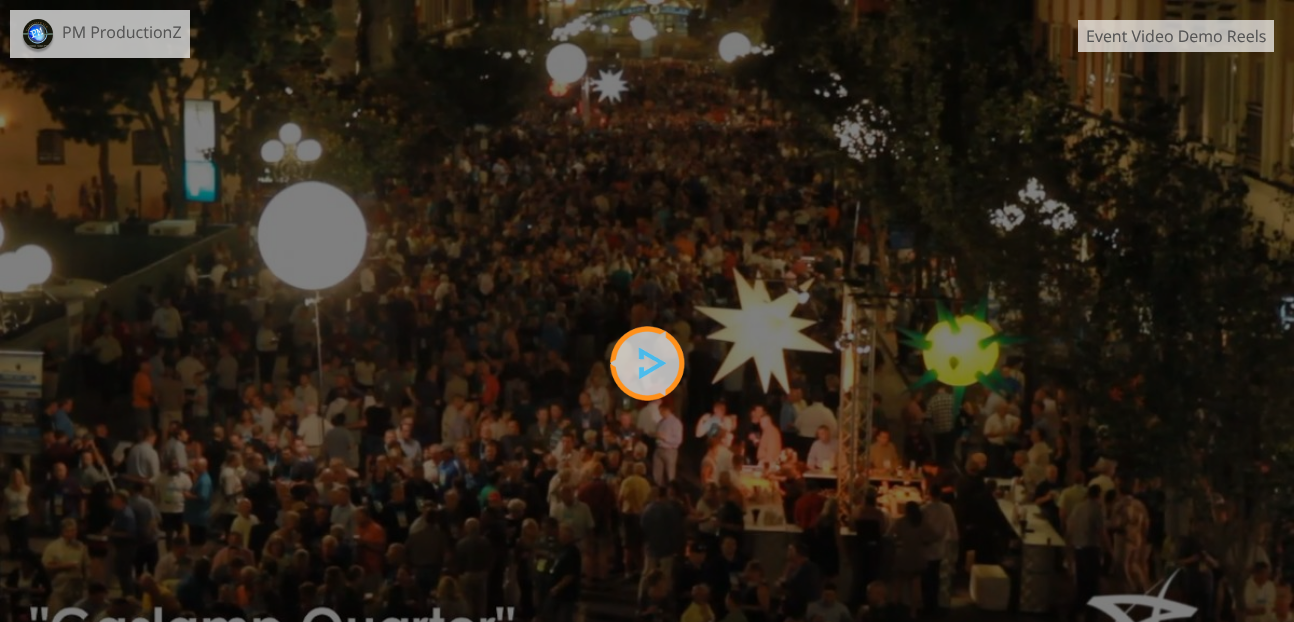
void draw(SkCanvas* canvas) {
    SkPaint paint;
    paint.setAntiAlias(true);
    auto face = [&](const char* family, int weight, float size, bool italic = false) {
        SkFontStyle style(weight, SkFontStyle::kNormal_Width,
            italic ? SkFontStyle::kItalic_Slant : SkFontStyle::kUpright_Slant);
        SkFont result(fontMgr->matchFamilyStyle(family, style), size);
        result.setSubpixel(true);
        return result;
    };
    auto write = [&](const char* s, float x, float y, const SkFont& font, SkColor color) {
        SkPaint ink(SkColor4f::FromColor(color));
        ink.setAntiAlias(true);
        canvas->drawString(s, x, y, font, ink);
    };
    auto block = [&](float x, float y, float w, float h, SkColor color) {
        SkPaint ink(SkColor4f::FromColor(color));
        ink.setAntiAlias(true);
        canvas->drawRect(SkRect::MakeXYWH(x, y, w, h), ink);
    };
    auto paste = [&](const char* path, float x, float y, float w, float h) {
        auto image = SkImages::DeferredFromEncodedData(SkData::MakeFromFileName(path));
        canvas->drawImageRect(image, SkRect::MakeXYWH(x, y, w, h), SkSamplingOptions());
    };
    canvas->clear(SK_ColorWHITE);
    paste("pic1.png", 0, 0, 1294, 622);
    paste("pic2.png", 610, 326, 75, 75);
    paste("pic3.png", 638, 341, 29, 39);
    block(10, 10, 180, 48, SkColorSetARGB(179, 255, 255, 255));
    paint.setColor(SkColorSetARGB(77, 0, 0, 0));
    paint.setMaskFilter(SkMaskFilter::MakeBlur(kNormal_SkBlurStyle, 1));
    canvas->drawRoundRect(SkRect::MakeXYWH(23, 22, 30, 30), 15, 15, paint);
    paint.setMaskFilter(nullptr);
    paste("pic4.png", 23, 19, 30, 30);
    auto kFont1 = face("Open Sans", 400, 16);
    write("PM ProductionZ", 62, 38, kFont1, SkColorSetRGB(85, 85, 85));
    block(1078, 20, 196, 32, SkColorSetARGB(179, 255, 255, 255));
    write("Event Video Demo Reels", 1086, 42, kFont1, SkColorSetRGB(85, 85, 85));
}
